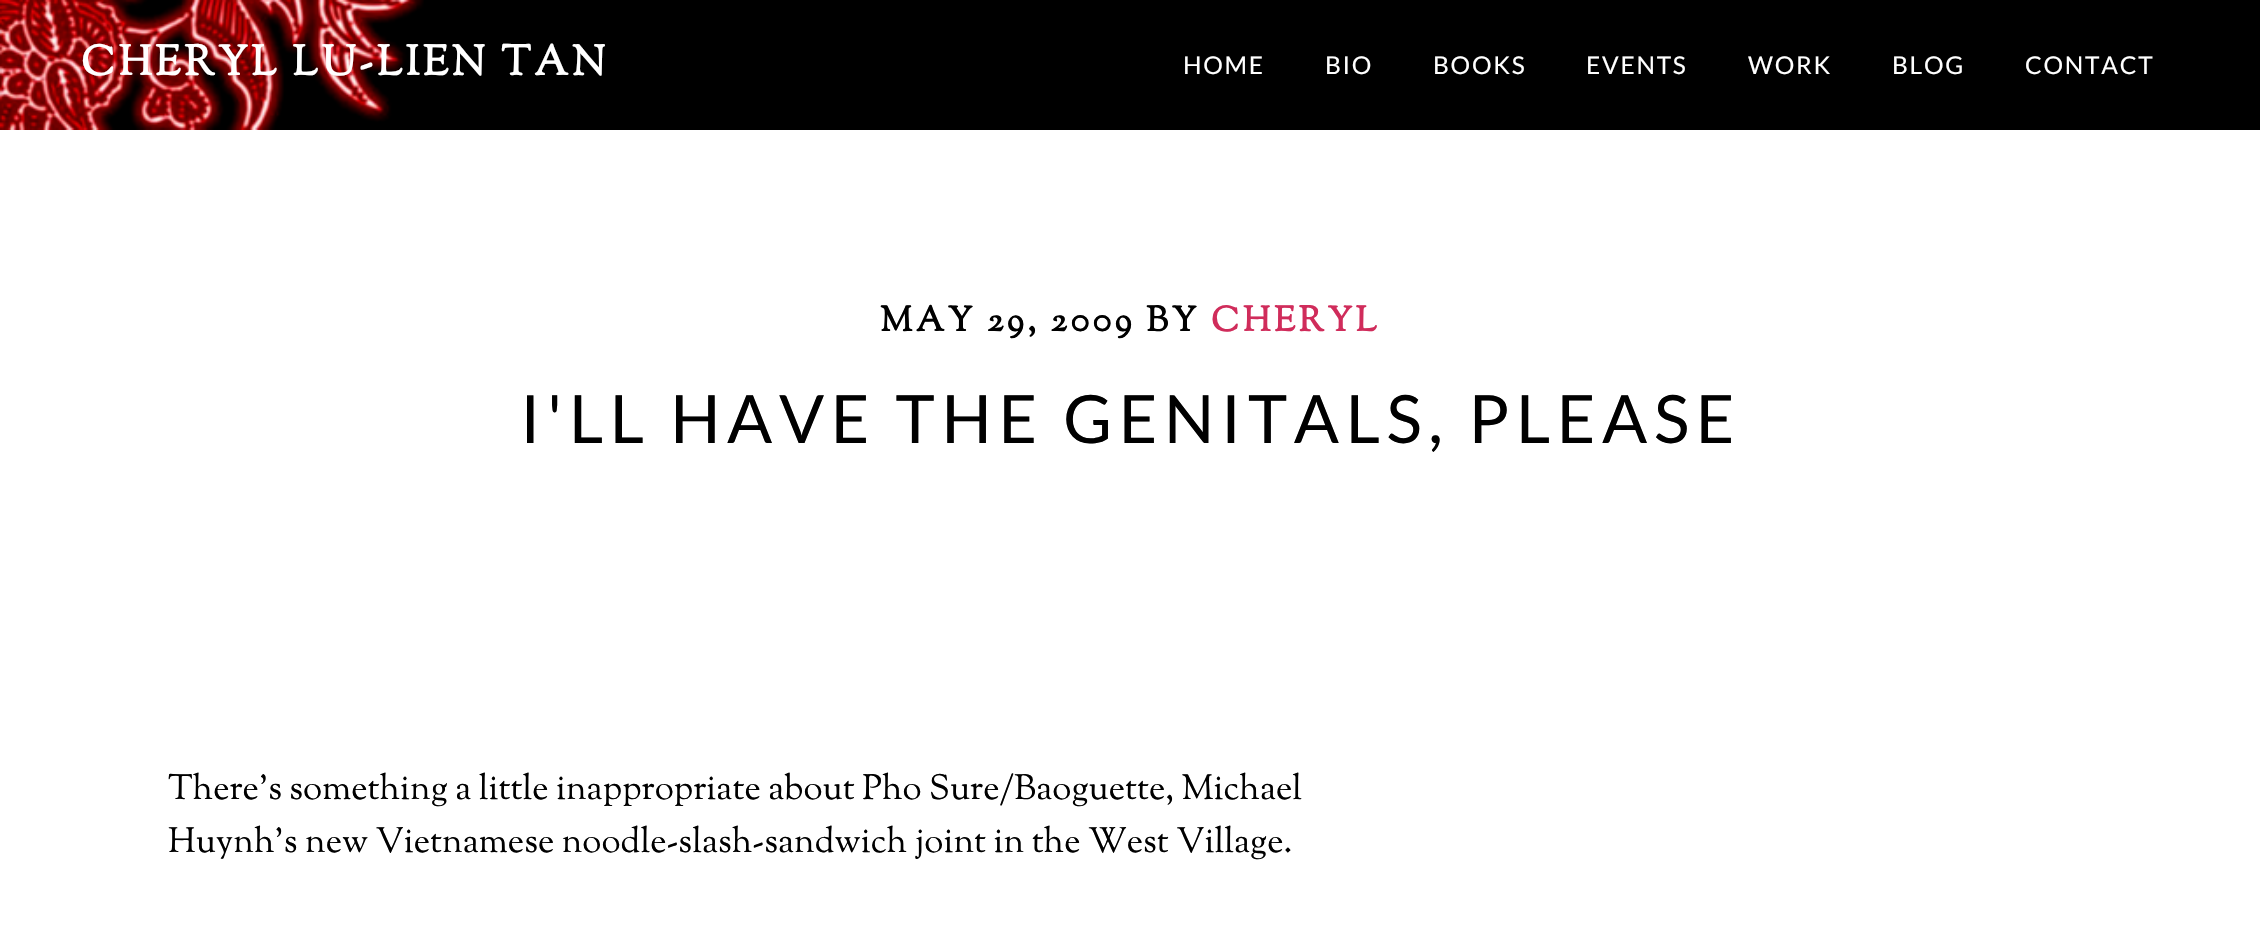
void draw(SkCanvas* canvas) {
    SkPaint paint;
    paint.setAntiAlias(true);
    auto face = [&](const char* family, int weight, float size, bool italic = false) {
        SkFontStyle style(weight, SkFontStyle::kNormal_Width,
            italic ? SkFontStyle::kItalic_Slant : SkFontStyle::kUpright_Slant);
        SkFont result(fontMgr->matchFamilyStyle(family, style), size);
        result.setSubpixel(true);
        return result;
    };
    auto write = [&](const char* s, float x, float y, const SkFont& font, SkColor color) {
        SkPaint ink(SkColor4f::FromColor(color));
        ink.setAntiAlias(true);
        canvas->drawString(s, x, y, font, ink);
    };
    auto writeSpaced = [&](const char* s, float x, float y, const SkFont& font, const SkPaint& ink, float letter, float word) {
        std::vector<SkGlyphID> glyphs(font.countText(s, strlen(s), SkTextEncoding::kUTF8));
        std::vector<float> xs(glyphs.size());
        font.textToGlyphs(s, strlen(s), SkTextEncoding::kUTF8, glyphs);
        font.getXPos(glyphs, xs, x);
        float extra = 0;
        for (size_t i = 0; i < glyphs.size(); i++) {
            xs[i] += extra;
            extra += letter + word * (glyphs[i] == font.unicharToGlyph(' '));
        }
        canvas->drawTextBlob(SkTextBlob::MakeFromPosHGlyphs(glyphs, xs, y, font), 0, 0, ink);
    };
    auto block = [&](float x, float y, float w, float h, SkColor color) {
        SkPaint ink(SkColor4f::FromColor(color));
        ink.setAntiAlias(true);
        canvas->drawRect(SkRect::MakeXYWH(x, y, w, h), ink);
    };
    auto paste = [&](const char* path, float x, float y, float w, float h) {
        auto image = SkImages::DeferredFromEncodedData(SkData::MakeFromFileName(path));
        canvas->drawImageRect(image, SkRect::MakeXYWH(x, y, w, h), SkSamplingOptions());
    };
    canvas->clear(SK_ColorWHITE);
    block(424, 0, 1836, 130, SK_ColorBLACK);
    paste("pic1.png", 0, 0, 424, 130);
    auto kFont1 = face("Sorts Mill Goudy", 700, 42);
    paint.setColor(SK_ColorWHITE);
    writeSpaced("CHERYL LU-LIEN TAN", 81, 75, kFont1, paint, 3.5f, 0);
    auto kFont2 = face("Lato", 400, 24.5f);
    writeSpaced("HOME", 1183, 74, kFont2, paint, 1.75f, 0);
    writeSpaced("BIO", 1325, 74, kFont2, paint, 1.75f, 0);
    writeSpaced("BOOKS", 1433, 74, kFont2, paint, 1.75f, 0);
    writeSpaced("EVENTS", 1586, 74, kFont2, paint, 1.75f, 0);
    writeSpaced("WORK", 1748, 74, kFont2, paint, 1.75f, 0);
    writeSpaced("BLOG", 1892, 74, kFont2, paint, 1.75f, 0);
    writeSpaced("CONTACT", 2025, 74, kFont2, paint, 1.75f, 0);
    auto kFont3 = face("Sorts Mill Goudy", 700, 35);
    paint.setColor(SK_ColorBLACK);
    writeSpaced("MAY 29, 2009 BY", 880, 331, kFont3, paint, 3.5f, 0);
    paint.setColor(SkColorSetRGB(208, 44, 91));
    writeSpaced("CHERYL", 1211, 331, kFont3, paint, 3.5f, 0);
    auto kFont4 = face("Lato", 400, 66.5f);
    paint.setColor(SK_ColorBLACK);
    writeSpaced("I'LL HAVE THE GENITALS, PLEASE", 520, 443, kFont4, paint, 6.65f, 0);
    auto kFont5 = face("Sorts Mill Goudy", 400, 35);
    write("There’s something a little inappropriate about Pho Sure/Baoguette, Michael", 168, 799, kFont5, SK_ColorBLACK);
    write("Huynh’s new Vietnamese noodle-slash-sandwich joint in the West Village.", 168, 852, kFont5, SK_ColorBLACK);
}
